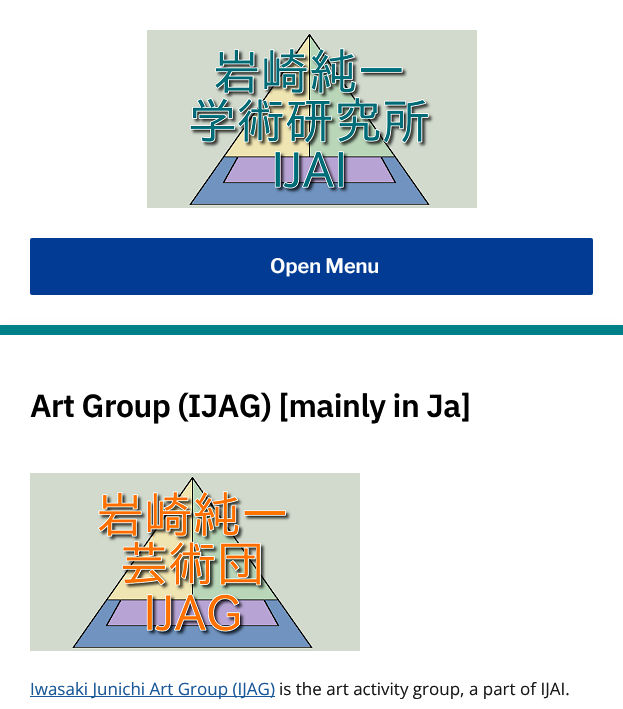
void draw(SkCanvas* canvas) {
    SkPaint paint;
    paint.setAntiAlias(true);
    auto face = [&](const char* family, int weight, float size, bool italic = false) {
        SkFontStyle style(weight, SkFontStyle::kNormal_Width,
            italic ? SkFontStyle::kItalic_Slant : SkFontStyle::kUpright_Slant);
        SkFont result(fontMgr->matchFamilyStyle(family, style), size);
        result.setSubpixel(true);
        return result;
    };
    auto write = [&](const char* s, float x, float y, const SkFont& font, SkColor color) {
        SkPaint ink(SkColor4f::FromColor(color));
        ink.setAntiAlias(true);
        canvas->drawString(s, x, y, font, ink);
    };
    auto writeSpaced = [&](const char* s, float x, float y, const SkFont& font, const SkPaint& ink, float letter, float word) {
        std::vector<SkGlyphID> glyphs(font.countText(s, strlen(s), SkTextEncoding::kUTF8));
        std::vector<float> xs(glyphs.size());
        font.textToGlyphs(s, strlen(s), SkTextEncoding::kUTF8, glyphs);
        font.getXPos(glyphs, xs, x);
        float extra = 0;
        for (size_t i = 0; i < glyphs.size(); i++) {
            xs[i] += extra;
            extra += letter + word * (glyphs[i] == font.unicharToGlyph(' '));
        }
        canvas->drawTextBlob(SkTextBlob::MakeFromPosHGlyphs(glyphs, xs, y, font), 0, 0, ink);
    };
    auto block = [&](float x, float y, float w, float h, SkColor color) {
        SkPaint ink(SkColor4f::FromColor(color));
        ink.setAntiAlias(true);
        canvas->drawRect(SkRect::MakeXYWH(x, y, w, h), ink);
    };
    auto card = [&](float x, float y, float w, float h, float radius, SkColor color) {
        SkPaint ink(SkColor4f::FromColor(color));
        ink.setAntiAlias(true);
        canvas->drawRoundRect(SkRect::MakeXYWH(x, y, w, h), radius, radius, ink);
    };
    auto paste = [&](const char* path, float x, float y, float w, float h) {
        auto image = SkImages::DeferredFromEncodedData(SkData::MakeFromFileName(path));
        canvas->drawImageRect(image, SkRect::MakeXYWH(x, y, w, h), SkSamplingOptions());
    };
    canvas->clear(SK_ColorWHITE);
    paste("pic1.png", 147, 30, 330, 178);
    card(30, 238, 563, 57, 2, SkColorSetRGB(1, 59, 147));
    auto kFont1 = face("Libre Franklin", 600, 20);
    write("Open Menu", 270, 273, kFont1, SK_ColorWHITE);
    paint.setColor(SkColorSetARGB(13, 12, 12, 12));
    paint.setMaskFilter(SkMaskFilter::MakeBlur(kNormal_SkBlurStyle, 5));
    canvas->drawRect(SkRect::MakeXYWH(0, 325, 623, 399), paint);
    paint.setMaskFilter(nullptr);
    block(0, 335, 623, 374, SK_ColorWHITE);
    block(0, 325, 623, 10, SkColorSetRGB(0, 128, 137));
    auto kFont2 = face("IBM Plex Sans", 600, 32);
    paint.setColor(SK_ColorBLACK);
    writeSpaced("Art Group (IJAG) [mainly in Ja]", 30, 417, kFont2, paint, -0.5f, 0);
    paste("pic2.png", 30, 473, 330, 178);
    block(30, 696, 245, 1, SkColorSetRGB(25, 88, 153));
    auto kFont3 = face("Open Sans", 400, 17);
    write("Iwasaki Junichi Art Group (IJAG)", 30, 695, kFont3, SkColorSetRGB(25, 88, 153));
    write("is the art activity group, a part of IJAI.", 279, 695, kFont3, SkColorSetRGB(24, 24, 24));
}
